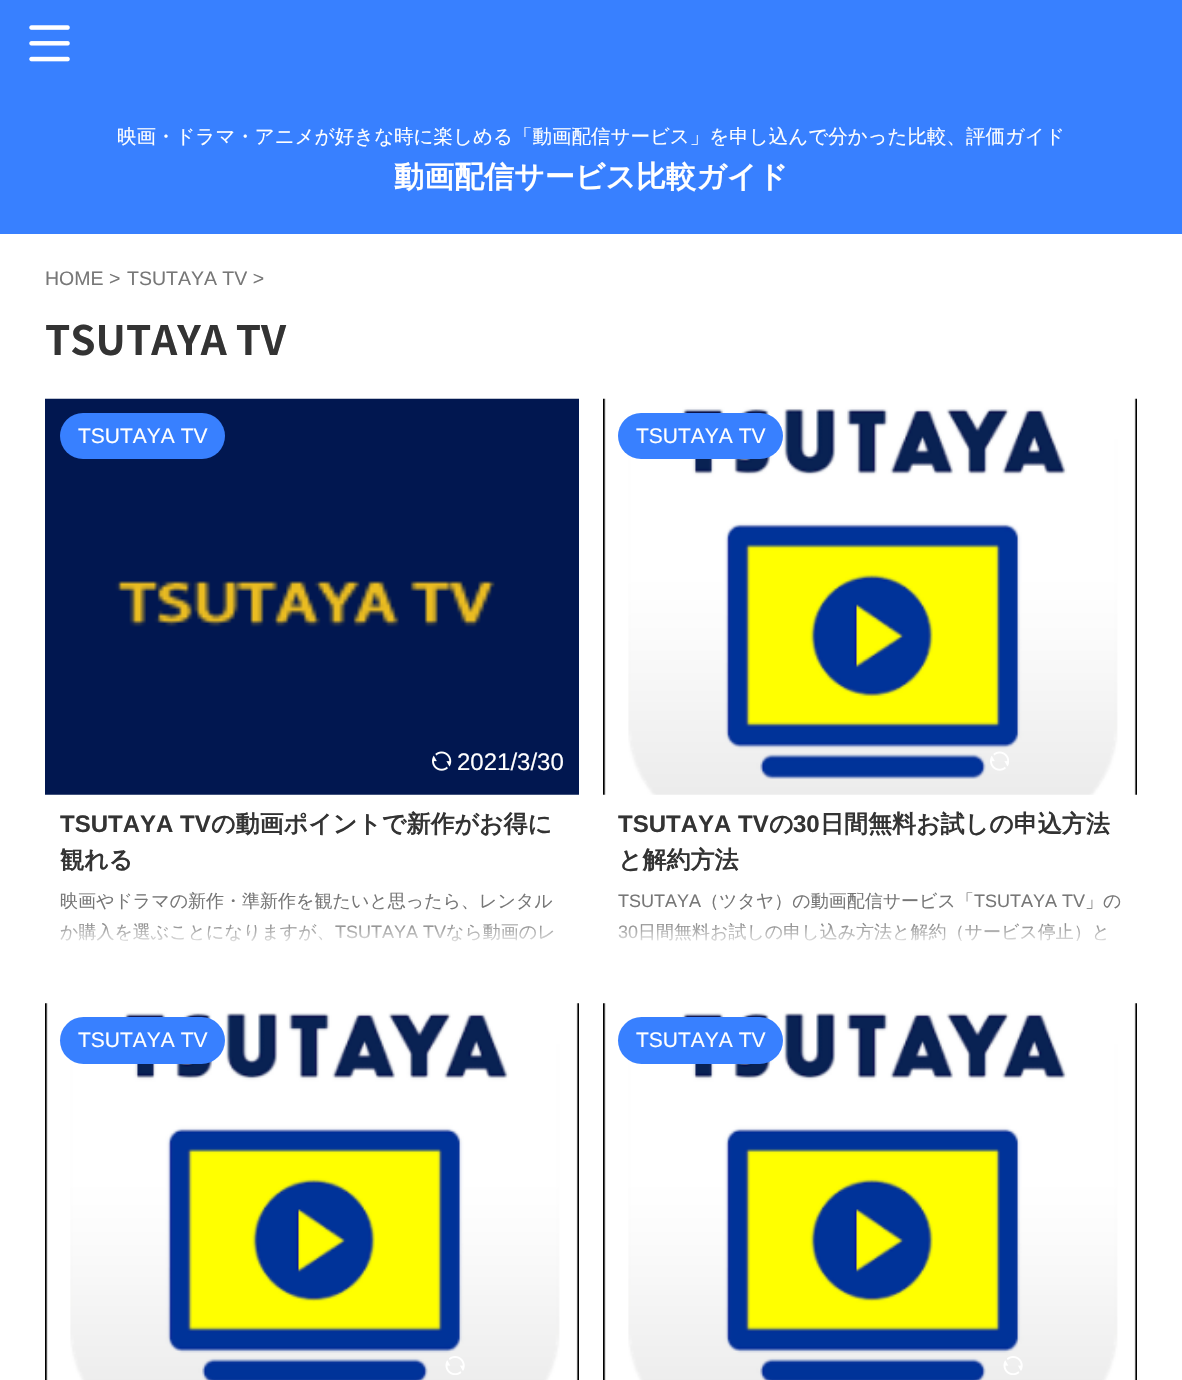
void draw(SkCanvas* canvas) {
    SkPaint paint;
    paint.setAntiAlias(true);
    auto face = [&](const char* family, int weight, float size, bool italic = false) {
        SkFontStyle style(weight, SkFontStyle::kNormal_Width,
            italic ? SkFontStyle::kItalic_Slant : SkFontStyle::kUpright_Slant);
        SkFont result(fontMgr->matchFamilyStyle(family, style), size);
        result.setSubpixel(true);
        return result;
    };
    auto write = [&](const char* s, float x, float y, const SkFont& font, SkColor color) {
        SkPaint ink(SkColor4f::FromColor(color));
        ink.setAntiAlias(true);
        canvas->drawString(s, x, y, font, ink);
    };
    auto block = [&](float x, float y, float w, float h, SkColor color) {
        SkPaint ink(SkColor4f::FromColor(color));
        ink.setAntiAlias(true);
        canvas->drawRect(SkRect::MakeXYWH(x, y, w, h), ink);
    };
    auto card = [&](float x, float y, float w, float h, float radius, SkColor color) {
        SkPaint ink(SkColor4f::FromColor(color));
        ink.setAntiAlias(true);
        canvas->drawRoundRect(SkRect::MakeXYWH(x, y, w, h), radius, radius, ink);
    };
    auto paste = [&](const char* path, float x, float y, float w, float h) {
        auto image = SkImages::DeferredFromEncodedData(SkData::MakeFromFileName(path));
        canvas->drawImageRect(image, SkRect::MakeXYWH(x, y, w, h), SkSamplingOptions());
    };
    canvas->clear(SK_ColorWHITE);
    block(0, 0, 1182, 234, SkColorSetRGB(56, 128, 255));
    paste("pic1.png", 29, 25, 41, 37);
    auto kFont1 = face("WenQuanYi Zen Hei", 500, 19.5f);
    write("映画・ドラマ・アニメが好きな時に楽しめる「動画配信サービス」を申し込んで分かった比較、評価ガイド", 117, 143, kFont1, SK_ColorWHITE);
    auto kFont2 = face("WenQuanYi Zen Hei", 700, 30);
    write("動画配信サービス比較ガイド", 394, 187, kFont2, SK_ColorWHITE);
    auto kFont3 = face("Liberation Sans", 400, 19.5f);
    write("HOME >", 45, 285, kFont3, SkColorSetRGB(119, 119, 119));
    write("TSUTAYA TV >", 127, 285, kFont3, SkColorSetRGB(119, 119, 119));
    auto kFont4 = face("Noto Sans JP", 700, 40.5f);
    write("TSUTAYA TV", 45, 355, kFont4, SkColorSetRGB(51, 51, 51));
    paste("pic2.png", 45, 398, 534, 397);
    card(60, 413, 165, 46, 23, SkColorSetRGB(56, 128, 255));
    auto kFont5 = face("Liberation Sans", 400, 21);
    write("TSUTAYA TV", 78, 443, kFont5, SK_ColorWHITE);
    paste("pic3.png", 432, 751, 20, 20);
    auto kFont6 = face("Liberation Sans", 400, 24);
    write("2021/3/30", 457, 770, kFont6, SK_ColorWHITE);
    auto kFont7 = face("Liberation Sans", 700, 24);
    write("TSUTAYA TV", 60, 832, kFont7, SkColorSetRGB(51, 51, 51));
    auto kFont8 = face("WenQuanYi Zen Hei", 700, 24);
    write("の動画ポイントで新作がお得に", 211, 832, kFont8, SkColorSetRGB(51, 51, 51));
    write("観れる", 60, 868, kFont8, SkColorSetRGB(51, 51, 51));
    auto kFont9 = face("WenQuanYi Zen Hei", 500, 18);
    write("映画やドラマの新作・準新作を観たいと思ったら、レンタル", 60, 907, kFont9, SkColorSetRGB(119, 119, 119));
    write("か購入を選ぶことになりますが、", 60, 938, kFont9, SkColorSetRGB(119, 119, 119));
    auto kFont10 = face("Liberation Sans", 400, 18);
    write("TSUTAYA TV", 335, 938, kFont10, SkColorSetRGB(119, 119, 119));
    write("なら動画のレ", 446, 938, kFont9, SkColorSetRGB(119, 119, 119));
    {
        const SkColor colors[] = {SkColorSetARGB(0, 255, 255, 255), SK_ColorWHITE};
        const float stops[] = {0, 1};
        const SkPoint ends[] = {{312, 920}, {312, 948}};
        paint.setShader(SkGradientShader::MakeLinear(ends, colors, stops, 2, SkTileMode::kClamp));
        paint.setAlpha(255);
    }
    canvas->drawRect(SkRect::MakeXYWH(60, 923, 493, 19), paint);
    paste("pic4.png", 603, 398, 534, 397);
    card(618, 413, 165, 46, 23, SkColorSetRGB(56, 128, 255));
    write("TSUTAYA TV", 636, 443, kFont5, SK_ColorWHITE);
    paste("pic5.png", 990, 751, 19, 20);
    write("TSUTAYA TV", 618, 832, kFont7, SkColorSetRGB(51, 51, 51));
    write("の", 769, 832, kFont8, SkColorSetRGB(51, 51, 51));
    write("30", 793, 832, kFont7, SkColorSetRGB(51, 51, 51));
    write("日間無料お試しの申込方法", 820, 832, kFont8, SkColorSetRGB(51, 51, 51));
    write("と解約方法", 618, 868, kFont8, SkColorSetRGB(51, 51, 51));
    write("TSUTAYA", 618, 907, kFont10, SkColorSetRGB(119, 119, 119));
    write("（ツタヤ）の動画配信サービス「", 701, 907, kFont9, SkColorSetRGB(119, 119, 119));
    write("TSUTAYA TV", 974, 907, kFont10, SkColorSetRGB(119, 119, 119));
    write("」の", 1085, 907, kFont9, SkColorSetRGB(119, 119, 119));
    write("日間無料お試しの申し込み方法と解約（サービス停止）と", 638, 938, kFont9, SkColorSetRGB(119, 119, 119));
    write("30", 618, 938, kFont10, SkColorSetRGB(119, 119, 119));
    {
        const SkColor colors[] = {SkColorSetARGB(0, 255, 255, 255), SK_ColorWHITE};
        const float stops[] = {0, 1};
        const SkPoint ends[] = {{870, 920}, {870, 948}};
        paint.setShader(SkGradientShader::MakeLinear(ends, colors, stops, 2, SkTileMode::kClamp));
        paint.setAlpha(255);
    }
    canvas->drawRect(SkRect::MakeXYWH(618, 923, 488, 19), paint);
    paste("pic6.png", 45, 1003, 534, 377);
    card(60, 1017, 165, 47, 23.5f, SkColorSetRGB(56, 128, 255));
    write("TSUTAYA TV", 78, 1047, kFont5, SK_ColorWHITE);
    paste("pic7.png", 445, 1356, 20, 19);
    paste("pic8.png", 603, 1003, 534, 377);
    card(618, 1017, 165, 47, 23.5f, SkColorSetRGB(56, 128, 255));
    write("TSUTAYA TV", 636, 1047, kFont5, SK_ColorWHITE);
    paste("pic7.png", 1003, 1356, 20, 19);
}
